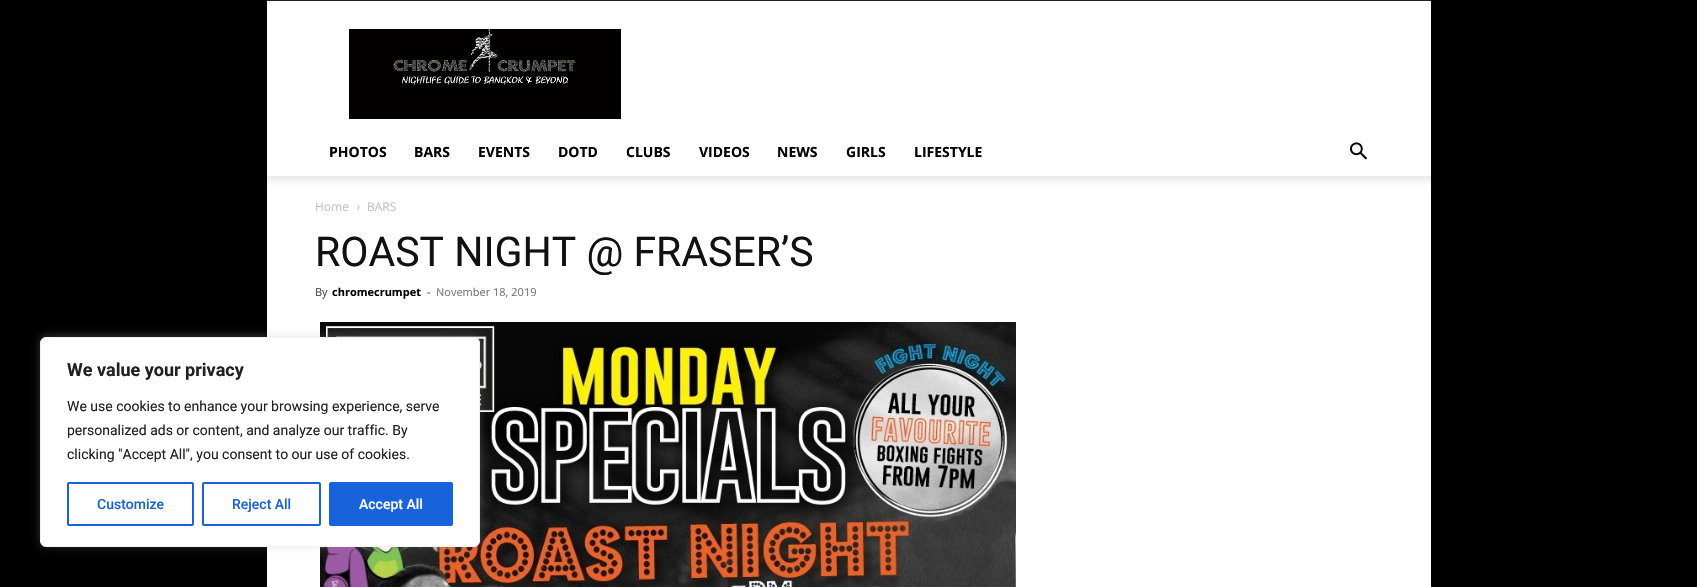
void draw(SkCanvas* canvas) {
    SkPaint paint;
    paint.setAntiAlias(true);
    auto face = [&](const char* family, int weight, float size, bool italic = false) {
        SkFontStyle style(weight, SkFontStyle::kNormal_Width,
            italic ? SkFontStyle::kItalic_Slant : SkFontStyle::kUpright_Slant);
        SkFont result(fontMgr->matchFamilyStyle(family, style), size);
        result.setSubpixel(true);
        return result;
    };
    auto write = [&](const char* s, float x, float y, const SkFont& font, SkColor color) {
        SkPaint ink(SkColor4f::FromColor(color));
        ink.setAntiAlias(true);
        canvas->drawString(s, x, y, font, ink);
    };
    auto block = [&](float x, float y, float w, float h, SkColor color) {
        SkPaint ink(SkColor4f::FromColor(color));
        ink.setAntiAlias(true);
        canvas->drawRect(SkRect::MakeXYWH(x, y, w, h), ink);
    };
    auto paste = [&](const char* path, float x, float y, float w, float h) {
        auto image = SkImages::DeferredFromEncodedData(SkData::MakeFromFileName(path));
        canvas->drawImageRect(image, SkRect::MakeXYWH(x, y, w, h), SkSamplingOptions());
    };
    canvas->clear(SK_ColorBLACK);
    block(267, 0, 1164, 1, SkColorSetRGB(34, 34, 34));
    block(267, 1, 1164, 175, SK_ColorWHITE);
    paste("pic1.png", 349, 29, 272, 90);
    auto kFont1 = face("Open Sans", 700, 14);
    write("PHOTOS", 329, 157, kFont1, SK_ColorBLACK);
    write("BARS", 414, 157, kFont1, SK_ColorBLACK);
    write("EVENTS", 478, 157, kFont1, SK_ColorBLACK);
    write("DOTD", 558, 157, kFont1, SK_ColorBLACK);
    write("CLUBS", 626, 157, kFont1, SK_ColorBLACK);
    write("VIDEOS", 699, 157, kFont1, SK_ColorBLACK);
    write("NEWS", 777, 157, kFont1, SK_ColorBLACK);
    write("GIRLS", 846, 157, kFont1, SK_ColorBLACK);
    write("LIFESTYLE", 914, 157, kFont1, SK_ColorBLACK);
    paste("pic2.png", 1350, 142, 17, 18);
    block(267, 176, 1164, 411, SK_ColorWHITE);
    paste("pic3.png", 267, 176, 1164, 9);
    auto kFont2 = face("Open Sans", 400, 12);
    write("Home", 315, 211, kFont2, SkColorSetRGB(195, 195, 195));
    paste("pic4.png", 357, 205, 3, 5);
    write("BARS", 367, 211, kFont2, SkColorSetRGB(195, 195, 195));
    auto kFont3 = face("Roboto", 400, 41);
    write("ROAST NIGHT @ FRASER’S", 315, 266, kFont3, SkColorSetRGB(17, 17, 17));
    auto kFont4 = face("Open Sans", 400, 11);
    write("By", 315, 296, kFont4, SkColorSetRGB(68, 68, 68));
    auto kFont5 = face("Open Sans", 700, 11);
    write("chromecrumpet", 332, 296, kFont5, SK_ColorBLACK);
    write("-", 427, 296, kFont4, SkColorSetRGB(68, 68, 68));
    write("November 18, 2019", 436, 296, kFont4, SkColorSetRGB(118, 118, 118));
    paste("pic5.png", 320, 322, 696, 265);
    paint.setColor(SkColorSetARGB(77, 172, 171, 171));
    paint.setMaskFilter(SkMaskFilter::MakeBlur(kNormal_SkBlurStyle, 5));
    canvas->drawRoundRect(SkRect::MakeXYWH(40, 336, 440, 210), 6, 6, paint);
    paint.setMaskFilter(nullptr);
    paint.setColor(SK_ColorWHITE);
    canvas->drawRoundRect(SkRect::MakeXYWH(40.5f, 337.5f, 439, 209), 5.5f, 5.5f, paint);
    paint.setStyle(SkPaint::kStroke_Style);
    paint.setStrokeWidth(1);
    paint.setColor(SkColorSetRGB(244, 244, 244));
    canvas->drawRoundRect(SkRect::MakeXYWH(40.5f, 337.5f, 439, 209), 5.5f, 5.5f, paint);
    auto kFont6 = face("Roboto", 700, 18);
    write("We value your privacy", 67, 376, kFont6, SkColorSetRGB(33, 33, 33));
    auto kFont7 = face("Roboto", 400, 14);
    write("We use cookies to enhance your browsing experience, serve", 67, 411, kFont7, SkColorSetRGB(33, 33, 33));
    write("personalized ads or content, and analyze our traffic. By", 67, 435, kFont7, SkColorSetRGB(33, 33, 33));
    write("clicking \"Accept All\", you consent to our use of cookies.", 67, 459, kFont7, SkColorSetRGB(33, 33, 33));
    paint.setStrokeWidth(2);
    paint.setColor(SkColorSetRGB(24, 99, 220));
    canvas->drawRoundRect(SkRect::MakeXYWH(68, 483, 125, 42), 1, 1, paint);
    auto kFont8 = face("Roboto", 500, 14);
    write("Customize", 97, 509, kFont8, SkColorSetRGB(24, 99, 220));
    canvas->drawRoundRect(SkRect::MakeXYWH(203, 483, 117, 42), 1, 1, paint);
    write("Reject All", 232, 509, kFont8, SkColorSetRGB(24, 99, 220));
    paint.setStyle(SkPaint::kFill_Style);
    canvas->drawRoundRect(SkRect::MakeXYWH(330, 483, 122, 42), 1, 1, paint);
    paint.setStyle(SkPaint::kStroke_Style);
    canvas->drawRoundRect(SkRect::MakeXYWH(330, 483, 122, 42), 1, 1, paint);
    write("Accept All", 359, 509, kFont8, SK_ColorWHITE);
}
